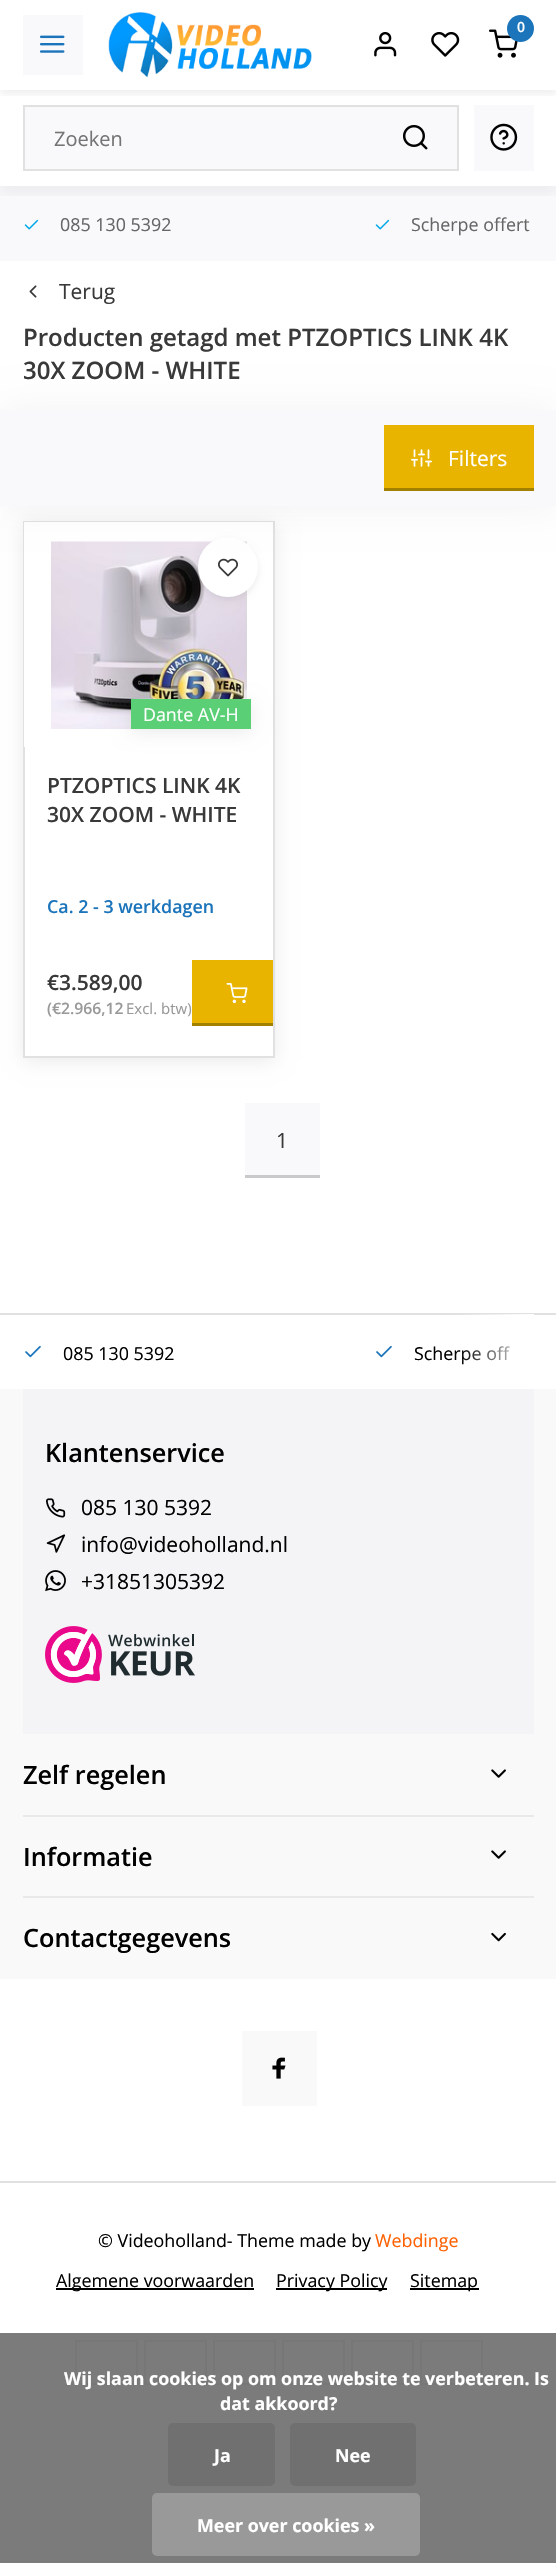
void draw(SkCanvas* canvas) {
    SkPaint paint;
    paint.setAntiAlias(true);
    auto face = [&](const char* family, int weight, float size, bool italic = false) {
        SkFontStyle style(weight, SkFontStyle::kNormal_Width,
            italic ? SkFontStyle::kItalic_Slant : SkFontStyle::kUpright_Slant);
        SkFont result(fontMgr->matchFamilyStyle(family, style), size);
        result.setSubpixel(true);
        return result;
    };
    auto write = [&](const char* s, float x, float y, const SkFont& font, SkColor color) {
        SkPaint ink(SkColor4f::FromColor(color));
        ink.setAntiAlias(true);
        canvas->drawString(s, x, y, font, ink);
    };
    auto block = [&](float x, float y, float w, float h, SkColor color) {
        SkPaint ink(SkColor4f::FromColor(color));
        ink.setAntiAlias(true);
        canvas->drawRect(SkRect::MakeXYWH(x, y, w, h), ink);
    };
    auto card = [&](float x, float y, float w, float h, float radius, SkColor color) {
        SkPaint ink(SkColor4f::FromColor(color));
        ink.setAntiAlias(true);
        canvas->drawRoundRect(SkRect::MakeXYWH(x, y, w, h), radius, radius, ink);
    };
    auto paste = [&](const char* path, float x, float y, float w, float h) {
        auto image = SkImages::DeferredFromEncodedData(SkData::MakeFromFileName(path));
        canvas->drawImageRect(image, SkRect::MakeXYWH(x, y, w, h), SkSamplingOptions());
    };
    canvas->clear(SK_ColorWHITE);
    block(0, 2333, 556, 230, SkColorSetRGB(123, 123, 123));
    block(0, 186, 556, 75, SkColorSetRGB(249, 249, 251));
    canvas->save();
    canvas->clipRect(SkRect::MakeXYWH(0, 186, 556, 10));
    paint.setColor(SkColorSetARGB(13, 0, 0, 0));
    paint.setMaskFilter(SkMaskFilter::MakeBlur(kNormal_SkBlurStyle, 7.5f));
    canvas->drawRect(SkRect::MakeXYWH(0, 8, 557, 186), paint);
    paint.setMaskFilter(nullptr);
    canvas->restore();
    canvas->save();
    canvas->clipRect(SkRect::MakeXYWH(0, 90, 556, 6));
    paint.setMaskFilter(SkMaskFilter::MakeBlur(kNormal_SkBlurStyle, 3));
    canvas->drawRect(SkRect::MakeXYWH(0, 5, 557, 90), paint);
    paint.setMaskFilter(nullptr);
    canvas->restore();
    block(23, 15, 60, 60, SkColorSetRGB(249, 249, 251));
    paste("pic1.png", 40, 35, 25, 18);
    paste("pic2.png", 108, 12, 204, 66);
    paste("pic3.png", 489, 29, 29, 29);
    paint.setColor(SkColorSetRGB(28, 117, 187));
    canvas->drawCircle(520.5f, 28.5f, 13.5f, paint);
    auto kFont1 = face("Open Sans", 600, 14);
    write("0", 517, 32, kFont1, SK_ColorWHITE);
    paste("pic4.png", 374, 31, 23, 26);
    paste("pic5.png", 431, 31, 29, 26);
    paint.setColor(SkColorSetRGB(249, 249, 251));
    canvas->drawRect(SkRect::MakeXYWH(24, 106, 434, 64), paint);
    paint.setStyle(SkPaint::kStroke_Style);
    paint.setStrokeWidth(2);
    paint.setColor(SkColorSetRGB(225, 225, 225));
    canvas->drawRect(SkRect::MakeXYWH(24, 106, 434, 64), paint);
    auto kFont2 = face("Open Sans", 400, 20);
    write("Zoeken", 54, 146, kFont2, SkColorSetRGB(117, 117, 117));
    paste("pic6.png", 403, 125, 25, 25);
    block(474, 105, 60, 66, SkColorSetRGB(249, 249, 251));
    paste("pic7.png", 490, 123, 28, 28);
    paste("pic8.png", 24, 219, 15, 11);
    auto kFont3 = face("Open Sans", 400, 17.85f);
    write("085 130 5392", 60, 231, kFont3, SkColorSetRGB(102, 102, 102));
    paste("pic8.png", 375, 219, 15, 11);
    write("Scherpe offert", 411, 231, kFont3, SkColorSetRGB(102, 102, 102));
    paste("pic9.png", 29, 285, 8, 13);
    auto kFont4 = face("Open Sans", 400, 21);
    write("Terug", 59, 299, kFont4, SkColorSetRGB(57, 57, 57));
    auto kFont5 = face("Open Sans", 600, 24);
    write("Producten getagd met PTZOPTICS LINK 4K", 23, 346, kFont5, SkColorSetRGB(57, 57, 57));
    write("30X ZOOM - WHITE", 23, 379, kFont5, SkColorSetRGB(57, 57, 57));
    paint.setStyle(SkPaint::kFill_Style);
    paint.setColor(SkColorSetARGB(20, 0, 0, 0));
    paint.setMaskFilter(SkMaskFilter::MakeBlur(kNormal_SkBlurStyle, 9));
    canvas->drawRect(SkRect::MakeXYWH(23, 524, 252, 537), paint);
    paint.setMaskFilter(nullptr);
    block(25, 747, 248, 309, SK_ColorWHITE);
    paint.setStyle(SkPaint::kStroke_Style);
    paint.setColor(SkColorSetRGB(225, 225, 225));
    canvas->drawRect(SkRect::MakeXYWH(24, 522, 250, 535), paint);
    block(24, 522, 249, 225, SK_ColorWHITE);
    paste("pic11.png", 51, 541, 196, 188);
    paint.setStyle(SkPaint::kFill_Style);
    paint.setColor(SkColorSetARGB(18, 0, 0, 0));
    paint.setMaskFilter(SkMaskFilter::MakeBlur(kNormal_SkBlurStyle, 3));
    canvas->drawRoundRect(SkRect::MakeXYWH(198, 540, 60, 60), 30, 30, paint);
    paint.setMaskFilter(nullptr);
    paint.setColor(SK_ColorWHITE);
    canvas->drawCircle(228, 567, 30, paint);
    paste("pic12.png", 218, 558, 20, 19);
    paint.setColor(SkColorSetARGB(13, 0, 0, 0));
    paint.setMaskFilter(SkMaskFilter::MakeBlur(kNormal_SkBlurStyle, 19));
    canvas->drawRect(SkRect::MakeXYWH(0, 411, 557, 96), paint);
    paint.setMaskFilter(nullptr);
    block(0, 410, 556, 96, SkColorSetRGB(249, 249, 251));
    block(384, 425, 150, 63, SkColorSetRGB(232, 180, 0));
    block(384, 488, 150, 3, SkColorSetRGB(162, 128, 0));
    paste("pic10.png", 411, 449, 21, 18);
    write("Filters", 448, 466, kFont4, SK_ColorWHITE);
    paint.setColor(SkColorSetARGB(20, 0, 0, 0));
    paint.setMaskFilter(SkMaskFilter::MakeBlur(kNormal_SkBlurStyle, 9));
    canvas->drawRect(SkRect::MakeXYWH(131, 702, 120, 30), paint);
    paint.setMaskFilter(nullptr);
    block(131, 699, 120, 30, SkColorSetRGB(91, 207, 118));
    write("Dante AV-H", 143, 721, kFont3, SK_ColorWHITE);
    auto kFont6 = face("Open Sans", 600, 21);
    write("PTZOPTICS LINK 4K", 47, 793, kFont6, SkColorSetRGB(57, 57, 57));
    write("30X ZOOM - WHITE", 47, 822, kFont6, SkColorSetRGB(57, 57, 57));
    auto kFont7 = face("Open Sans", 600, 17.85f);
    write("Ca. 2 - 3 werkdagen", 47, 913, kFont7, SkColorSetRGB(28, 117, 187));
    write("€3.589,00", 47, 990, kFont6, SkColorSetRGB(57, 57, 57));
    auto kFont8 = face("Open Sans", 600, 15.75f);
    write("(€2.966,12", 47, 1014, kFont8, SkColorSetRGB(153, 153, 153));
    auto kFont9 = face("Open Sans", 400, 15);
    write("Excl. btw)", 126, 1014, kFont9, SkColorSetRGB(153, 153, 153));
    block(192, 960, 81, 63, SkColorSetRGB(232, 180, 0));
    block(192, 1023, 81, 3, SkColorSetRGB(162, 128, 0));
    paste("pic13.png", 226, 983, 22, 21);
    block(245, 1103, 75, 72, SkColorSetRGB(249, 249, 251));
    block(245, 1175, 75, 3, SkColorSetRGB(201, 201, 203));
    write("1", 276, 1148, kFont4, SkColorSetRGB(57, 57, 57));
    block(0, 1313, 556, 2, SkColorSetRGB(225, 225, 225));
    write("Scherpe off", 414, 1360, kFont3, SK_ColorBLACK);
    {
        const SkColor colors[] = {SkColorSetARGB(0, 255, 255, 255), SK_ColorWHITE};
        const float stops[] = {0, 1};
        const SkPoint ends[] = {{458, 1352}, {534, 1352}};
        paint.setShader(SkGradientShader::MakeLinear(ends, colors, stops, 2, SkTileMode::kClamp));
        paint.setAlpha(255);
    }
    canvas->drawRect(SkRect::MakeXYWH(462, 1314, 72, 51), paint);
    paste("pic14.png", 25, 1346, 16, 12);
    write("085 130 5392", 63, 1360, kFont3, SK_ColorBLACK);
    paste("pic14.png", 376, 1346, 16, 12);
    block(0, 1389, 556, 590, SkColorSetRGB(249, 249, 249));
    block(23, 1389, 511, 345, SkColorSetRGB(244, 244, 246));
    auto kFont10 = face("Open Sans", 600, 25.25f);
    write("Klantenservice", 45, 1462, kFont10, SK_ColorBLACK);
    paste("pic15.png", 46, 1498, 20, 20);
    write("085 130 5392", 81, 1515, kFont4, SK_ColorBLACK);
    paste("pic16.png", 46, 1534, 20, 19);
    write("info@videoholland.nl", 81, 1552, kFont4, SK_ColorBLACK);
    paste("pic17.png", 45, 1570, 21, 22);
    write("+31851305392", 81, 1589, kFont4, SK_ColorBLACK);
    paste("pic18.png", 45, 1626, 150, 57);
    block(23, 1815, 511, 2, SkColorSetRGB(233, 233, 233));
    write("Zelf regelen", 23, 1784, kFont10, SK_ColorBLACK);
    paste("pic19.png", 491, 1769, 15, 9);
    block(23, 1896, 511, 2, SkColorSetRGB(233, 233, 233));
    write("Informatie", 23, 1866, kFont10, SK_ColorBLACK);
    paste("pic19.png", 491, 1850, 15, 9);
    write("Contactgegevens", 23, 1947, kFont10, SK_ColorBLACK);
    paste("pic20.png", 491, 1932, 15, 10);
    block(242, 2031, 75, 75, SkColorSetRGB(249, 249, 249));
    paste("pic21.png", 272, 2057, 14, 22);
    block(0, 2181, 556, 2, SkColorSetRGB(225, 225, 225));
    write("© Videoholland- Theme made by", 98, 2247, kFont3, SK_ColorBLACK);
    write("Webdinge", 375, 2247, kFont3, SkColorSetRGB(255, 96, 0));
    block(56, 2288, 198, 2, SK_ColorBLACK);
    write("Algemene voorwaarden", 56, 2287, kFont3, SK_ColorBLACK);
    block(276, 2288, 111, 2, SK_ColorBLACK);
    write("Privacy Policy", 276, 2287, kFont3, SK_ColorBLACK);
    block(410, 2288, 69, 2, SK_ColorBLACK);
    write("Sitemap", 410, 2287, kFont3, SK_ColorBLACK);
    paint.setStyle(SkPaint::kStroke_Style);
    paint.setShader(nullptr);
    paint.setColor(SkColorSetRGB(119, 119, 119));
    canvas->drawRect(SkRect::MakeXYWH(76, 2341, 61, 43), paint);
    canvas->drawRect(SkRect::MakeXYWH(145, 2341, 61, 43), paint);
    canvas->drawRect(SkRect::MakeXYWH(214, 2341, 61, 43), paint);
    canvas->drawRect(SkRect::MakeXYWH(283, 2341, 61, 43), paint);
    canvas->drawRect(SkRect::MakeXYWH(352, 2341, 61, 43), paint);
    canvas->drawRect(SkRect::MakeXYWH(421, 2341, 61, 43), paint);
    auto kFont11 = face("Open Sans", 700, 17.85f);
    write("Wij slaan cookies op om onze website te verbeteren. Is", 64, 2385, kFont11, SK_ColorWHITE);
    write("dat akkoord?", 220, 2410, kFont11, SK_ColorWHITE);
    card(168, 2423, 107, 63, 5, SkColorSetRGB(112, 112, 112));
    write("Ja", 214, 2462, kFont11, SK_ColorWHITE);
    card(290, 2423, 126, 63, 5, SkColorSetRGB(112, 112, 112));
    write("Nee", 335, 2462, kFont11, SK_ColorWHITE);
    card(152, 2493, 268, 63, 5, SkColorSetRGB(153, 153, 153));
    write("Meer over cookies »", 197, 2532, kFont11, SK_ColorWHITE);
}
